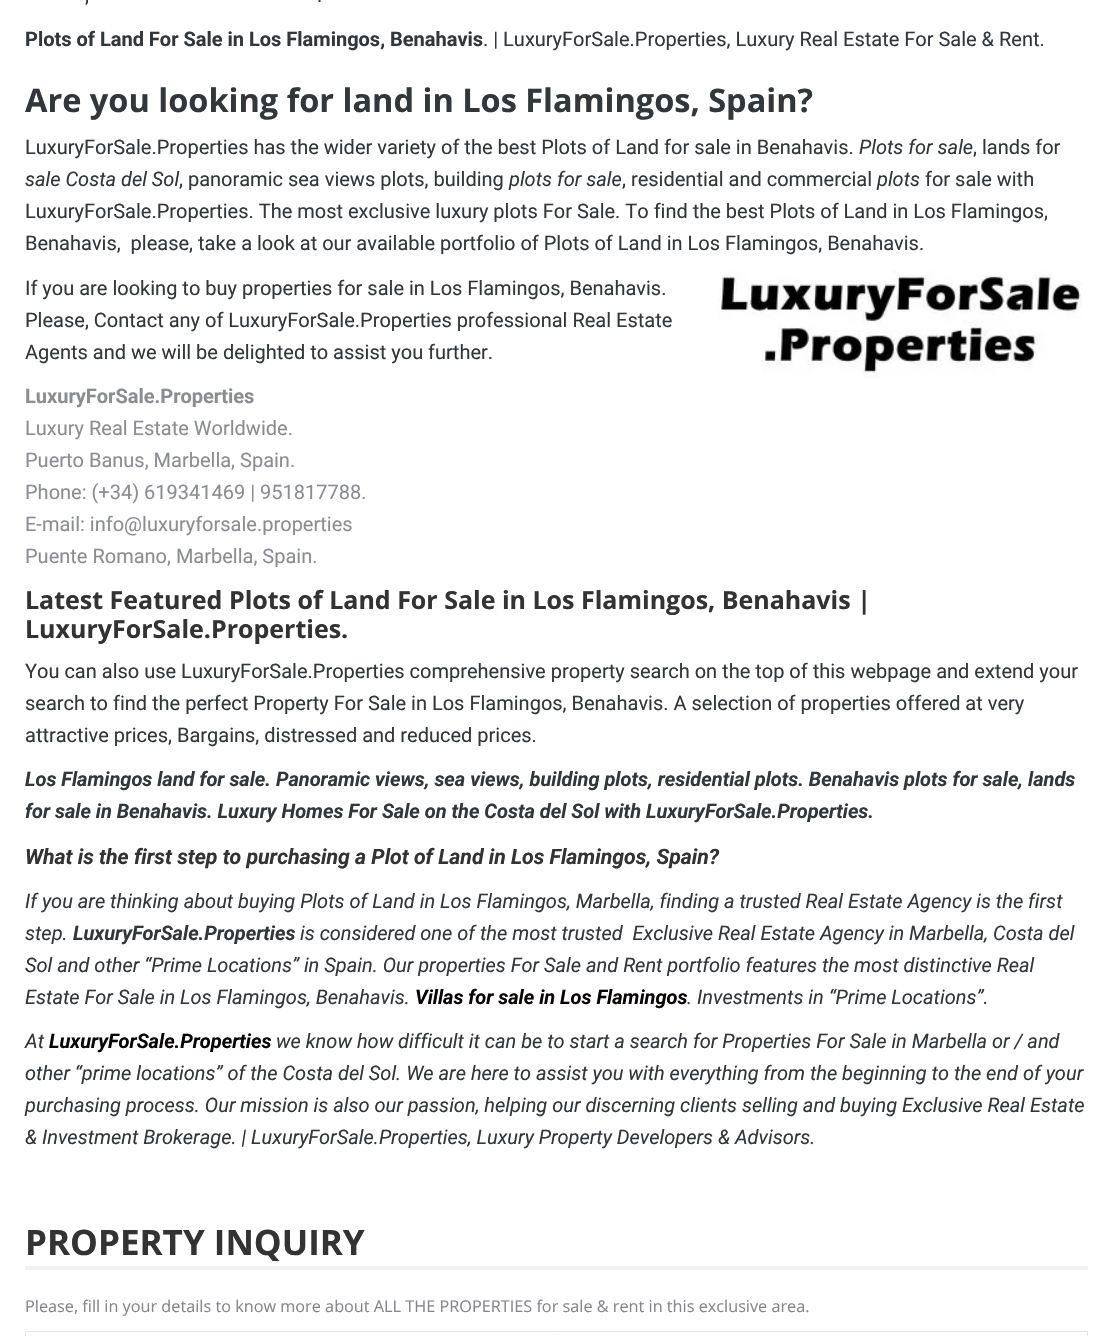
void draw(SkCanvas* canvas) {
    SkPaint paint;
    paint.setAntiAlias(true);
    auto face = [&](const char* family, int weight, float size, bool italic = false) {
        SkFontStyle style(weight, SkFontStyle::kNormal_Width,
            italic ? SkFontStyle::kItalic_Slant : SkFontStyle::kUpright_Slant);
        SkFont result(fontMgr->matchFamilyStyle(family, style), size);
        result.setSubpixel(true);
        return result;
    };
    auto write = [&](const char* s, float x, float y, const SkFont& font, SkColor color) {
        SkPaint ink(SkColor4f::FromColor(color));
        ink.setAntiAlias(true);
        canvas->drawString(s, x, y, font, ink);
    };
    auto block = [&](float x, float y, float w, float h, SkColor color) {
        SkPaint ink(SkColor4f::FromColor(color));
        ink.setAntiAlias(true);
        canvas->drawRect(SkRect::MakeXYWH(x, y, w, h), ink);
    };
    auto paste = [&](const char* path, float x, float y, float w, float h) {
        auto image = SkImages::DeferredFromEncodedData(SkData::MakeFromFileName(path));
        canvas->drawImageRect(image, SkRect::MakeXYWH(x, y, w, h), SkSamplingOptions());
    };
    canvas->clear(SK_ColorWHITE);
    auto kFont1 = face("Roboto", 400, 20);
    write(",", 85, 2, kFont1, SkColorSetRGB(50, 55, 60));
    write(".", 317, 2, kFont1, SkColorSetRGB(50, 55, 60));
    auto kFont2 = face("Roboto", 700, 20);
    write("Plots of Land For Sale in Los Flamingos, Benahavis", 25, 46, kFont2, SkColorSetRGB(50, 55, 60));
    write(". | LuxuryForSale.Properties, Luxury Real Estate For Sale & Rent.", 483, 46, kFont1, SkColorSetRGB(50, 55, 60));
    auto kFont3 = face("Open Sans", 700, 32.5f);
    write("Are you looking for land in Los Flamingos, Spain?", 25, 112, kFont3, SkColorSetRGB(50, 55, 60));
    write("LuxuryForSale.Properties has the wider variety of the best Plots of Land for sale in Benahavis.", 25, 154, kFont1, SkColorSetRGB(50, 55, 60));
    auto kFont4 = face("Roboto", 400, 20, true);
    write("Plots for sale", 859, 154, kFont4, SkColorSetRGB(50, 55, 60));
    write(", lands for", 973, 154, kFont1, SkColorSetRGB(50, 55, 60));
    write("sale Costa del Sol", 25, 186, kFont4, SkColorSetRGB(50, 55, 60));
    write(", panoramic sea views plots, building", 179, 186, kFont1, SkColorSetRGB(50, 55, 60));
    write("plots for sale", 509, 186, kFont4, SkColorSetRGB(50, 55, 60));
    write(", residential and commercial", 622, 186, kFont1, SkColorSetRGB(50, 55, 60));
    write("plots", 877, 186, kFont4, SkColorSetRGB(50, 55, 60));
    write("for sale with", 925, 186, kFont1, SkColorSetRGB(50, 55, 60));
    write("LuxuryForSale.Properties. The most exclusive luxury plots For Sale. To find the best Plots of Land in Los Flamingos,", 25, 218, kFont1, SkColorSetRGB(50, 55, 60));
    write("Benahavis,  please, take a look at our available portfolio of Plots of Land in Los Flamingos, Benahavis.", 25, 250, kFont1, SkColorSetRGB(50, 55, 60));
    paste("pic1.png", 717, 270, 366, 109);
    write("If you are looking to buy properties for sale in Los Flamingos, Benahavis.", 25, 295, kFont1, SkColorSetRGB(50, 55, 60));
    write("Please, Contact any of LuxuryForSale.Properties professional Real Estate", 25, 327, kFont1, SkColorSetRGB(50, 55, 60));
    write("Agents and we will be delighted to assist you further.", 25, 359, kFont1, SkColorSetRGB(50, 55, 60));
    write("LuxuryForSale.Properties", 25, 403, kFont2, SkColorSetRGB(139, 141, 148));
    write("Luxury Real Estate Worldwide.", 25, 435, kFont1, SkColorSetRGB(139, 141, 148));
    write("Puerto Banus, Marbella, Spain.", 25, 467, kFont1, SkColorSetRGB(139, 141, 148));
    write("Phone: (+34) 619341469 | 951817788.", 25, 499, kFont1, SkColorSetRGB(139, 141, 148));
    write("E-mail: info@luxuryforsale.properties", 25, 531, kFont1, SkColorSetRGB(139, 141, 148));
    write("Puente Romano, Marbella, Spain.", 25, 563, kFont1, SkColorSetRGB(139, 141, 148));
    auto kFont5 = face("Open Sans", 700, 25);
    write("Latest Featured Plots of Land For Sale in Los Flamingos, Benahavis |", 25, 609, kFont5, SkColorSetRGB(51, 51, 51));
    write("LuxuryForSale.Properties.", 25, 638, kFont5, SkColorSetRGB(51, 51, 51));
    write("You can also use LuxuryForSale.Properties comprehensive property search on the top of this webpage and extend your", 25, 678, kFont1, SkColorSetRGB(50, 55, 60));
    write("search to find the perfect Property For Sale in Los Flamingos, Benahavis. A selection of properties offered at very", 25, 710, kFont1, SkColorSetRGB(50, 55, 60));
    write("attractive prices, Bargains, distressed and reduced prices.", 25, 742, kFont1, SkColorSetRGB(50, 55, 60));
    auto kFont6 = face("Roboto", 700, 20, true);
    write("Los Flamingos land for sale. Panoramic views, sea views, building plots, residential plots. Benahavis plots for sale, lands", 25, 786, kFont6, SkColorSetRGB(50, 55, 60));
    write("for sale in Benahavis. Luxury Homes For Sale on the Costa del Sol with LuxuryForSale.Properties.", 25, 818, kFont6, SkColorSetRGB(50, 55, 60));
    auto kFont7 = face("Roboto", 700, 21.25f, true);
    write("What is the first step to purchasing a Plot of Land in Los Flamingos, Spain?", 25, 864, kFont7, SkColorSetRGB(51, 51, 51));
    write("If you are thinking about buying Plots of Land in Los Flamingos, Marbella, finding a trusted Real Estate Agency is the first", 25, 908, kFont4, SkColorSetRGB(50, 55, 60));
    write("step.", 25, 940, kFont4, SkColorSetRGB(50, 55, 60));
    write("LuxuryForSale.Properties", 73, 940, kFont6, SkColorSetRGB(50, 55, 60));
    write("is considered one of the most trusted  Exclusive Real Estate Agency in Marbella, Costa del", 300, 940, kFont4, SkColorSetRGB(50, 55, 60));
    write("Sol and other “Prime Locations” in Spain. Our properties For Sale and Rent portfolio features the most distinctive Real", 25, 972, kFont4, SkColorSetRGB(50, 55, 60));
    write("Estate For Sale in Los Flamingos, Benahavis.", 25, 1004, kFont4, SkColorSetRGB(50, 55, 60));
    write("Villas for sale in Los Flamingos", 415, 1004, kFont6, SkColorSetRGB(10, 5, 5));
    write(". Investments in “Prime Locations”.", 687, 1004, kFont4, SkColorSetRGB(50, 55, 60));
    write("At", 25, 1048, kFont4, SkColorSetRGB(50, 55, 60));
    write("LuxuryForSale.Properties", 49, 1048, kFont6, SkColorSetRGB(10, 5, 5));
    write("we know how difficult it can be to start a search for Properties For Sale in Marbella or / and", 276, 1048, kFont4, SkColorSetRGB(50, 55, 60));
    write("other “prime locations” of the Costa del Sol. We are here to assist you with everything from the beginning to the end of your", 25, 1080, kFont4, SkColorSetRGB(50, 55, 60));
    write("purchasing process. Our mission is also our passion, helping our discerning clients selling and buying Exclusive Real Estate", 25, 1112, kFont4, SkColorSetRGB(50, 55, 60));
    write("& Investment Brokerage. | LuxuryForSale.Properties, Luxury Property Developers & Advisors.", 25, 1144, kFont4, SkColorSetRGB(50, 55, 60));
    block(25, 1266, 1063, 4, SkColorSetRGB(242, 242, 242));
    auto kFont8 = face("Open Sans", 700, 35);
    write("PROPERTY INQUIRY", 25, 1255, kFont8, SkColorSetRGB(51, 51, 51));
    auto kFont9 = face("Open Sans", 400, 16.25f);
    write("Please, fill in your details to know more about ALL THE PROPERTIES for sale & rent in this exclusive area.", 25, 1312, kFont9, SkColorSetRGB(133, 134, 140));
    paint.setStyle(SkPaint::kStroke_Style);
    paint.setStrokeWidth(1);
    paint.setColor(SkColorSetRGB(229, 229, 229));
    canvas->drawRoundRect(SkRect::MakeXYWH(25.5f, 1331.5f, 1062, 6), 0.5f, 0.5f, paint);
}
